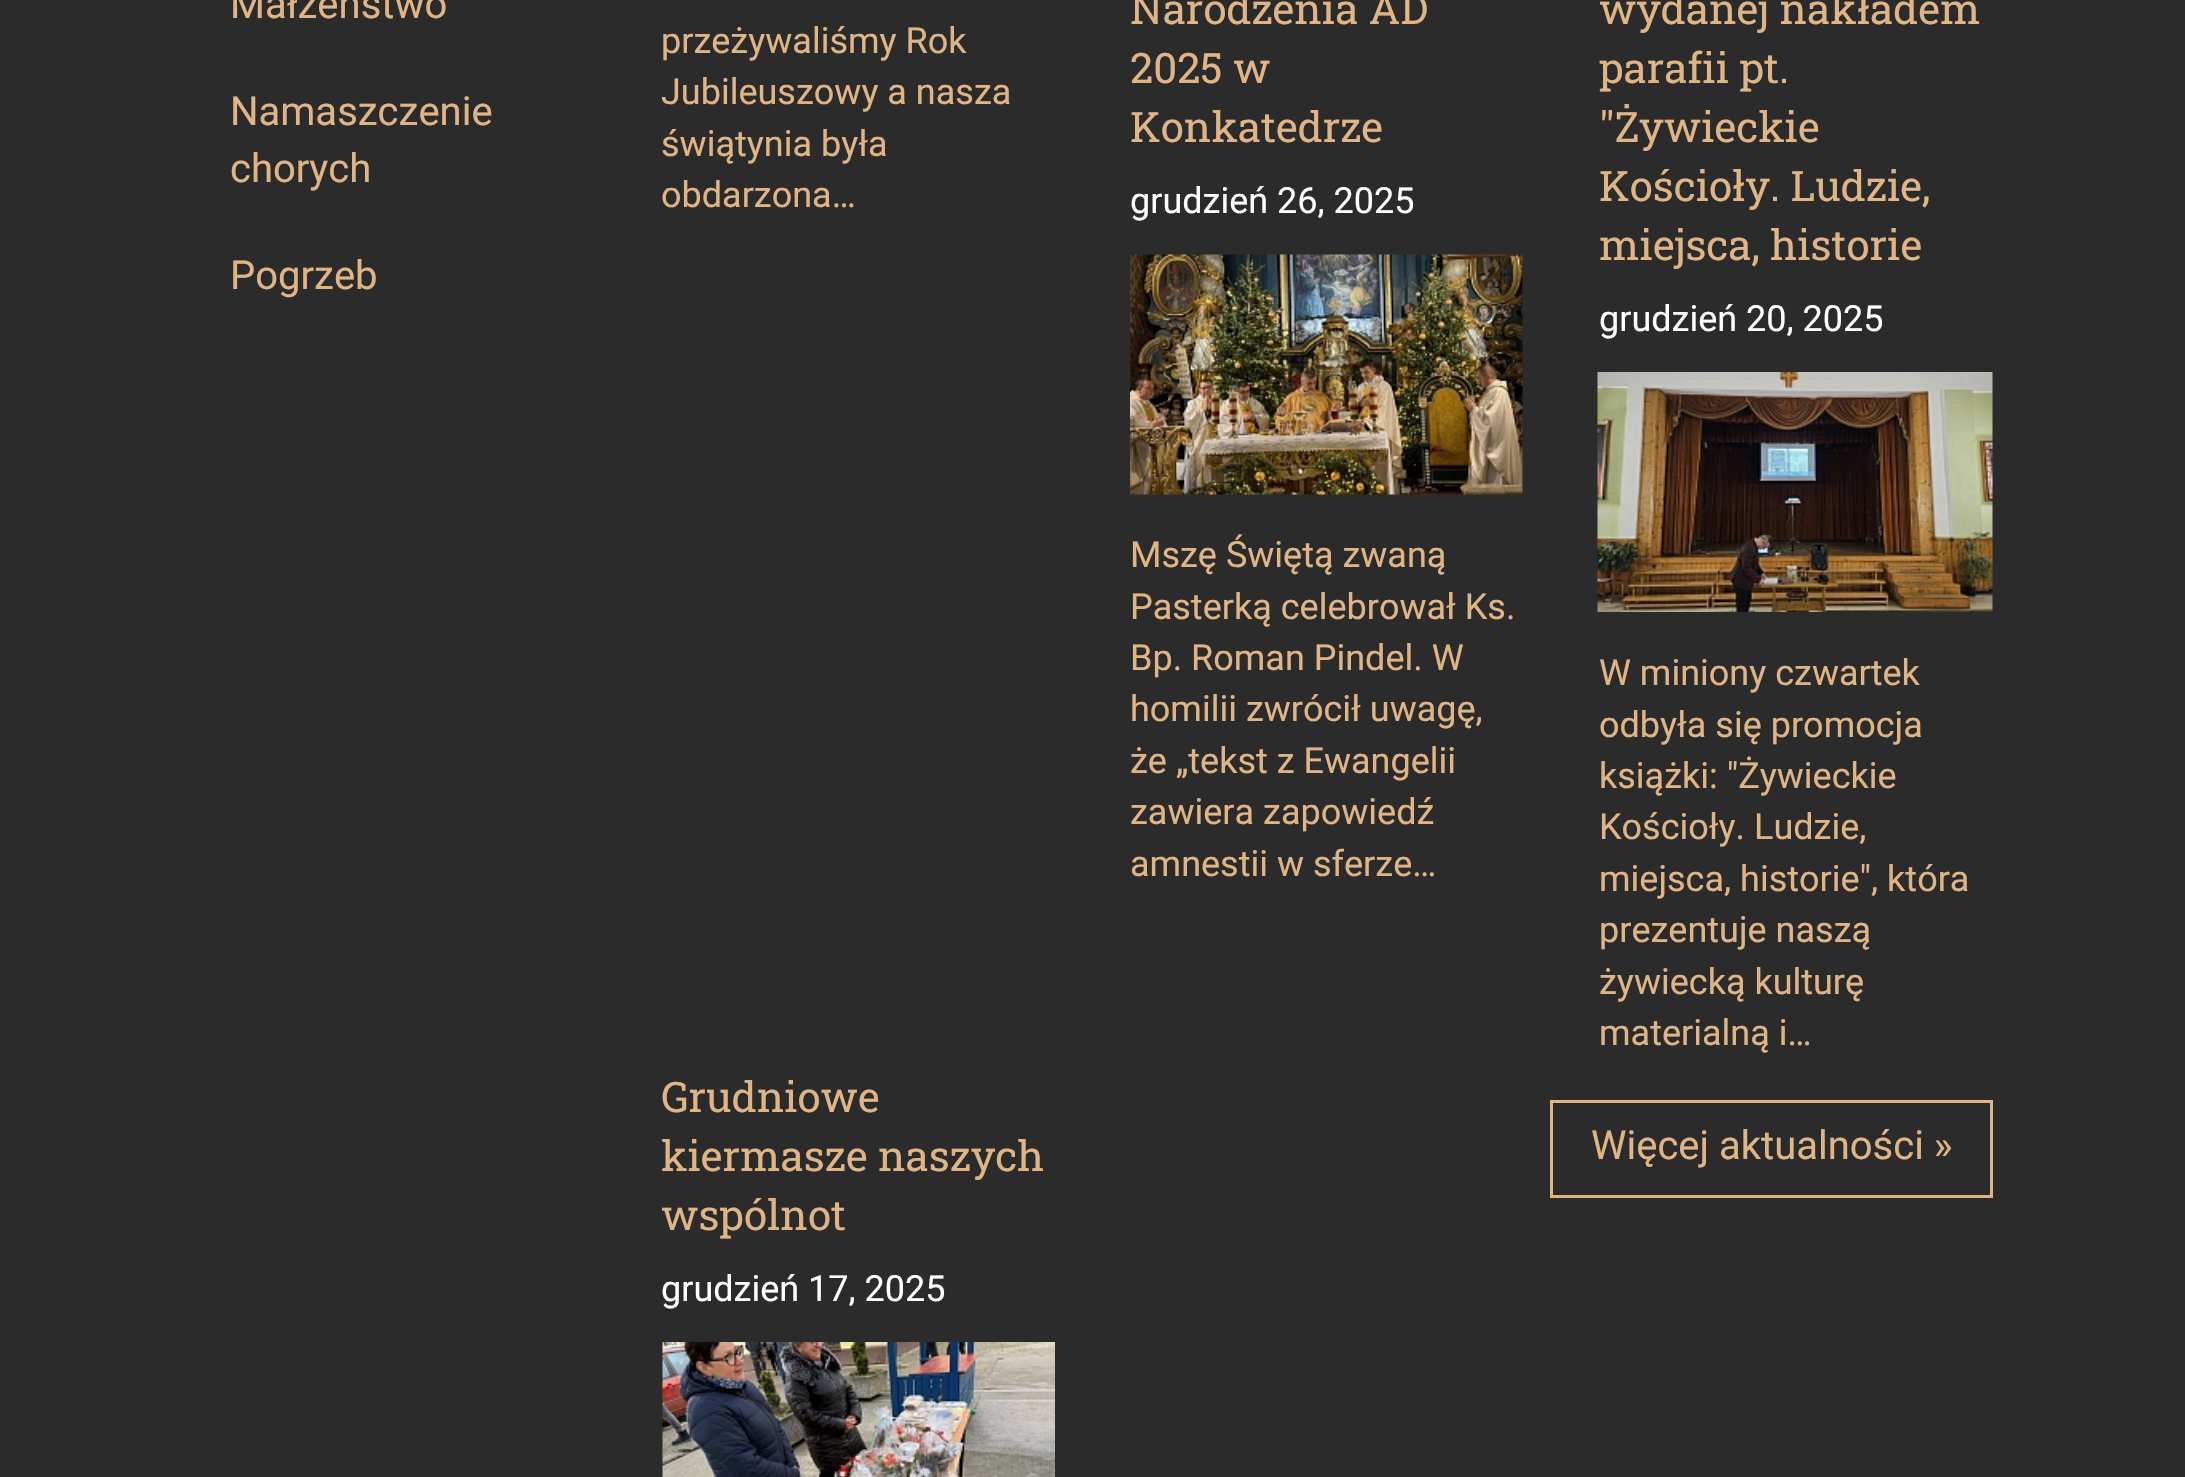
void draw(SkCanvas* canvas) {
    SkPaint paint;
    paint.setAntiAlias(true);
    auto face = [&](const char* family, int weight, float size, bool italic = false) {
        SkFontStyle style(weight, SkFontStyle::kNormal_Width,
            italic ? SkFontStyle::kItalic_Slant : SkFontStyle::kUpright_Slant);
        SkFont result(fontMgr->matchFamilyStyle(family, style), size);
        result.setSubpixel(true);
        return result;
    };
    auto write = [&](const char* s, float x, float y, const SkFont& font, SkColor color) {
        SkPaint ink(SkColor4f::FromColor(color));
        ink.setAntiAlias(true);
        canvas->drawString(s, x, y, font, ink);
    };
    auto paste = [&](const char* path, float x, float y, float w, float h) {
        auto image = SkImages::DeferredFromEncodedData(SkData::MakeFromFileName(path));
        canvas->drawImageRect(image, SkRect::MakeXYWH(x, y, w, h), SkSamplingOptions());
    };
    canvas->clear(SkColorSetRGB(43, 43, 43));
    auto kFont1 = face("Roboto", 400, 40);
    write("Małżeństwo", 230, 18, kFont1, SkColorSetRGB(224, 181, 134));
    write("Namaszczenie", 230, 125, kFont1, SkColorSetRGB(224, 181, 134));
    write("chorych", 230, 182, kFont1, SkColorSetRGB(224, 181, 134));
    write("Pogrzeb", 230, 289, kFont1, SkColorSetRGB(224, 181, 134));
    auto kFont2 = face("Roboto", 400, 36);
    write("przeżywaliśmy Rok", 661, 53, kFont2, SkColorSetRGB(224, 181, 134));
    write("Jubileuszowy a nasza", 661, 104, kFont2, SkColorSetRGB(224, 181, 134));
    write("świątynia była", 661, 156, kFont2, SkColorSetRGB(224, 181, 134));
    write("obdarzona…", 661, 207, kFont2, SkColorSetRGB(224, 181, 134));
    auto kFont3 = face("Roboto Slab", 400, 42);
    write("Narodzenia AD", 1130, 24, kFont3, SkColorSetRGB(224, 181, 134));
    write("2025 w", 1130, 83, kFont3, SkColorSetRGB(224, 181, 134));
    write("Konkatedrze", 1130, 142, kFont3, SkColorSetRGB(224, 181, 134));
    write("grudzień 26, 2025", 1130, 213, kFont2, SK_ColorWHITE);
    paste("pic1.png", 1130, 254, 393, 241);
    write("Mszę Świętą zwaną", 1130, 567, kFont2, SkColorSetRGB(224, 181, 134));
    write("Pasterką celebrował Ks.", 1130, 619, kFont2, SkColorSetRGB(224, 181, 134));
    write("Bp. Roman Pindel. W", 1130, 670, kFont2, SkColorSetRGB(224, 181, 134));
    write("homilii zwrócił uwagę,", 1130, 721, kFont2, SkColorSetRGB(224, 181, 134));
    write("że „tekst z Ewangelii", 1130, 773, kFont2, SkColorSetRGB(224, 181, 134));
    write("zawiera zapowiedź", 1130, 824, kFont2, SkColorSetRGB(224, 181, 134));
    write("amnestii w sferze…", 1130, 876, kFont2, SkColorSetRGB(224, 181, 134));
    write("wydanej nakładem", 1599, 24, kFont3, SkColorSetRGB(224, 181, 134));
    write("parafii pt.", 1599, 83, kFont3, SkColorSetRGB(224, 181, 134));
    write("\"Żywieckie", 1599, 142, kFont3, SkColorSetRGB(224, 181, 134));
    write("Kościoły. Ludzie,", 1599, 201, kFont3, SkColorSetRGB(224, 181, 134));
    write("miejsca, historie", 1599, 260, kFont3, SkColorSetRGB(224, 181, 134));
    write("grudzień 20, 2025", 1599, 331, kFont2, SK_ColorWHITE);
    paste("pic2.png", 1597, 372, 396, 240);
    write("W miniony czwartek", 1599, 685, kFont2, SkColorSetRGB(224, 181, 134));
    write("odbyła się promocja", 1599, 737, kFont2, SkColorSetRGB(224, 181, 134));
    write("książki: \"Żywieckie", 1599, 788, kFont2, SkColorSetRGB(224, 181, 134));
    write("Kościoły. Ludzie,", 1599, 839, kFont2, SkColorSetRGB(224, 181, 134));
    write("miejsca, historie\", która", 1599, 891, kFont2, SkColorSetRGB(224, 181, 134));
    write("prezentuje naszą", 1599, 942, kFont2, SkColorSetRGB(224, 181, 134));
    write("żywiecką kulturę", 1599, 994, kFont2, SkColorSetRGB(224, 181, 134));
    write("materialną i…", 1599, 1045, kFont2, SkColorSetRGB(224, 181, 134));
    write("Grudniowe", 661, 1112, kFont3, SkColorSetRGB(224, 181, 134));
    write("kiermasze naszych", 661, 1171, kFont3, SkColorSetRGB(224, 181, 134));
    write("wspólnot", 661, 1230, kFont3, SkColorSetRGB(224, 181, 134));
    write("grudzień 17, 2025", 661, 1301, kFont2, SK_ColorWHITE);
    paste("pic3.png", 662, 1342, 393, 135);
    paint.setStyle(SkPaint::kStroke_Style);
    paint.setStrokeWidth(3);
    paint.setColor(SkColorSetRGB(224, 181, 134));
    canvas->drawRect(SkRect::MakeXYWH(1551.5f, 1101.5f, 440, 95), paint);
    write("Więcej aktualności »", 1591, 1159, kFont1, SkColorSetRGB(224, 181, 134));
}
